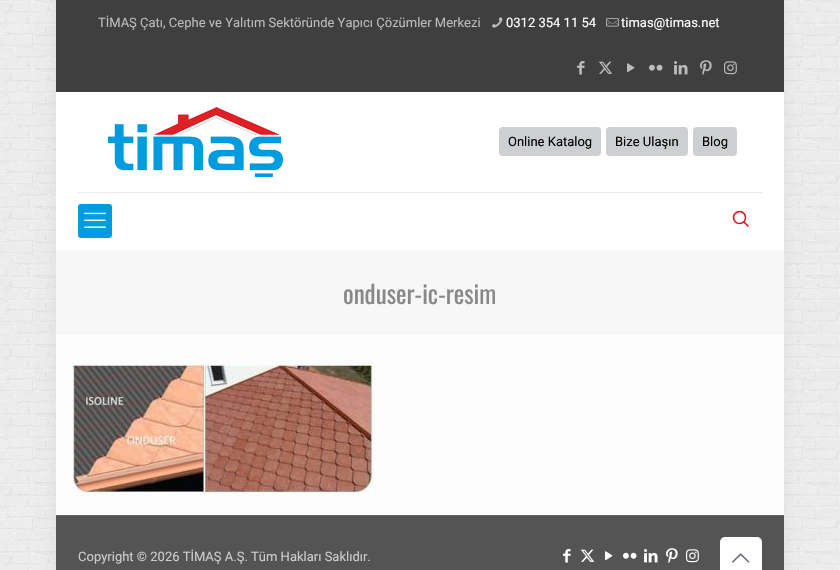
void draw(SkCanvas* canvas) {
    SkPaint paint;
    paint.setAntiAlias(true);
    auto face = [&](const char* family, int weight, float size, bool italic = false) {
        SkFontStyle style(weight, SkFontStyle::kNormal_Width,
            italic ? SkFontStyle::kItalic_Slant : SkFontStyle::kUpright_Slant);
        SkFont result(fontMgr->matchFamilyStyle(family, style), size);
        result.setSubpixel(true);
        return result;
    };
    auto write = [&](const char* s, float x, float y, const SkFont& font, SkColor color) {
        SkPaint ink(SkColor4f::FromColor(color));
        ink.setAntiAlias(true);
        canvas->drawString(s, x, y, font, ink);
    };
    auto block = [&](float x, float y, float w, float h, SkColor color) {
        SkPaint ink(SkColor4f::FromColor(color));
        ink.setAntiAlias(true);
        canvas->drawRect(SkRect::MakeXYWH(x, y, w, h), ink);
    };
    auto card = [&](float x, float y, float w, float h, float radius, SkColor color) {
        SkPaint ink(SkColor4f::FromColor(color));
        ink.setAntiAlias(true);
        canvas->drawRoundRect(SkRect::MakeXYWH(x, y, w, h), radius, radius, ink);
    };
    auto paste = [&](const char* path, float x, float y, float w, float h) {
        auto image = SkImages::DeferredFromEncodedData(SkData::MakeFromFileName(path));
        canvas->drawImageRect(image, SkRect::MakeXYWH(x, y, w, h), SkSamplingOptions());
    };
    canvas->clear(SK_ColorWHITE);
    paste("pic1.png", 0, 0, 840, 570);
    paint.setColor(SkColorSetARGB(15, 0, 0, 0));
    paint.setMaskFilter(SkMaskFilter::MakeBlur(kNormal_SkBlurStyle, 7.5f));
    canvas->drawRect(SkRect::MakeXYWH(56, 0, 728, 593), paint);
    paint.setMaskFilter(nullptr);
    block(56, 335, 728, 180, SkColorSetRGB(252, 252, 252));
    block(56, 0, 728, 92, SkColorSetRGB(64, 63, 63));
    auto kFont1 = face("Roboto", 400, 13);
    write("TİMAŞ Çatı, Cephe ve Yalıtım Sektöründe Yapıcı Çözümler Merkezi", 98, 27, kFont1, SkColorSetRGB(187, 187, 187));
    paste("pic2.png", 492, 17, 11, 11);
    write("0312 354 11 54", 506, 27, kFont1, SK_ColorWHITE);
    paste("pic3.png", 606, 18, 13, 9);
    write("timas@timas.net", 621, 27, kFont1, SK_ColorWHITE);
    paste("pic4.png", 577, 61, 8, 14);
    paste("pic5.png", 599, 61, 14, 13);
    paste("pic6.png", 627, 63, 8, 10);
    paste("pic7.png", 649, 64, 14, 7);
    paste("pic8.png", 674, 61, 14, 14);
    paste("pic9.png", 700, 60, 12, 15);
    paste("pic10.png", 724, 61, 13, 14);
    block(56, 92, 728, 158, SK_ColorWHITE);
    block(78, 192, 684, 1, SkColorSetRGB(235, 235, 235));
    paste("pic11.png", 108, 107, 175, 70);
    card(499, 127, 102, 29, 4, SkColorSetRGB(205, 207, 208));
    write("Online Katalog", 508, 146, kFont1, SK_ColorBLACK);
    card(606, 127, 82, 29, 4, SkColorSetRGB(205, 207, 208));
    write("Bize Ulaşın", 615, 146, kFont1, SK_ColorBLACK);
    card(693, 127, 44, 29, 4, SkColorSetRGB(205, 207, 208));
    write("Blog", 702, 146, kFont1, SK_ColorBLACK);
    card(78, 204, 34, 34, 3, SkColorSetRGB(0, 156, 224));
    paste("pic12.png", 84, 212, 22, 16);
    paint.setStyle(SkPaint::kStroke_Style);
    paint.setStrokeWidth(1.5f);
    paint.setColor(SkColorSetRGB(224, 8, 23));
    canvas->drawCircle(739.5f, 217.5f, 6, paint);
    canvas->drawPath(SkPathBuilder().moveTo(743.5f, 221.5f).lineTo(748.5f, 226.5f).detach(), paint);
    block(56, 250, 728, 85, SkColorSetRGB(247, 247, 247));
    auto kFont2 = face("Oswald", 400, 25);
    write("onduser-ic-resim", 343, 304, kFont2, SkColorSetRGB(136, 136, 136));
    paste("pic13.png", 73, 365, 300, 129);
    block(56, 516, 728, 54, SkColorSetRGB(84, 84, 84));
    block(56, 515, 728, 1, SkColorSetRGB(101, 101, 101));
    write("Copyright © 2026 TİMAŞ A.Ş. Tüm Hakları Saklıdır.", 78, 561, kFont1, SkColorSetRGB(204, 204, 204));
    paste("pic14.png", 563, 549, 8, 14);
    paste("pic15.png", 580, 549, 15, 13);
    paste("pic16.png", 605, 551, 8, 10);
    paste("pic17.png", 623, 552, 14, 7);
    paste("pic18.png", 644, 549, 14, 14);
    paste("pic19.png", 666, 548, 12, 16);
    paste("pic20.png", 686, 549, 13, 14);
    card(720, 537, 42, 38, 5, SK_ColorWHITE);
    paste("pic21.png", 732, 553, 18, 10);
}
